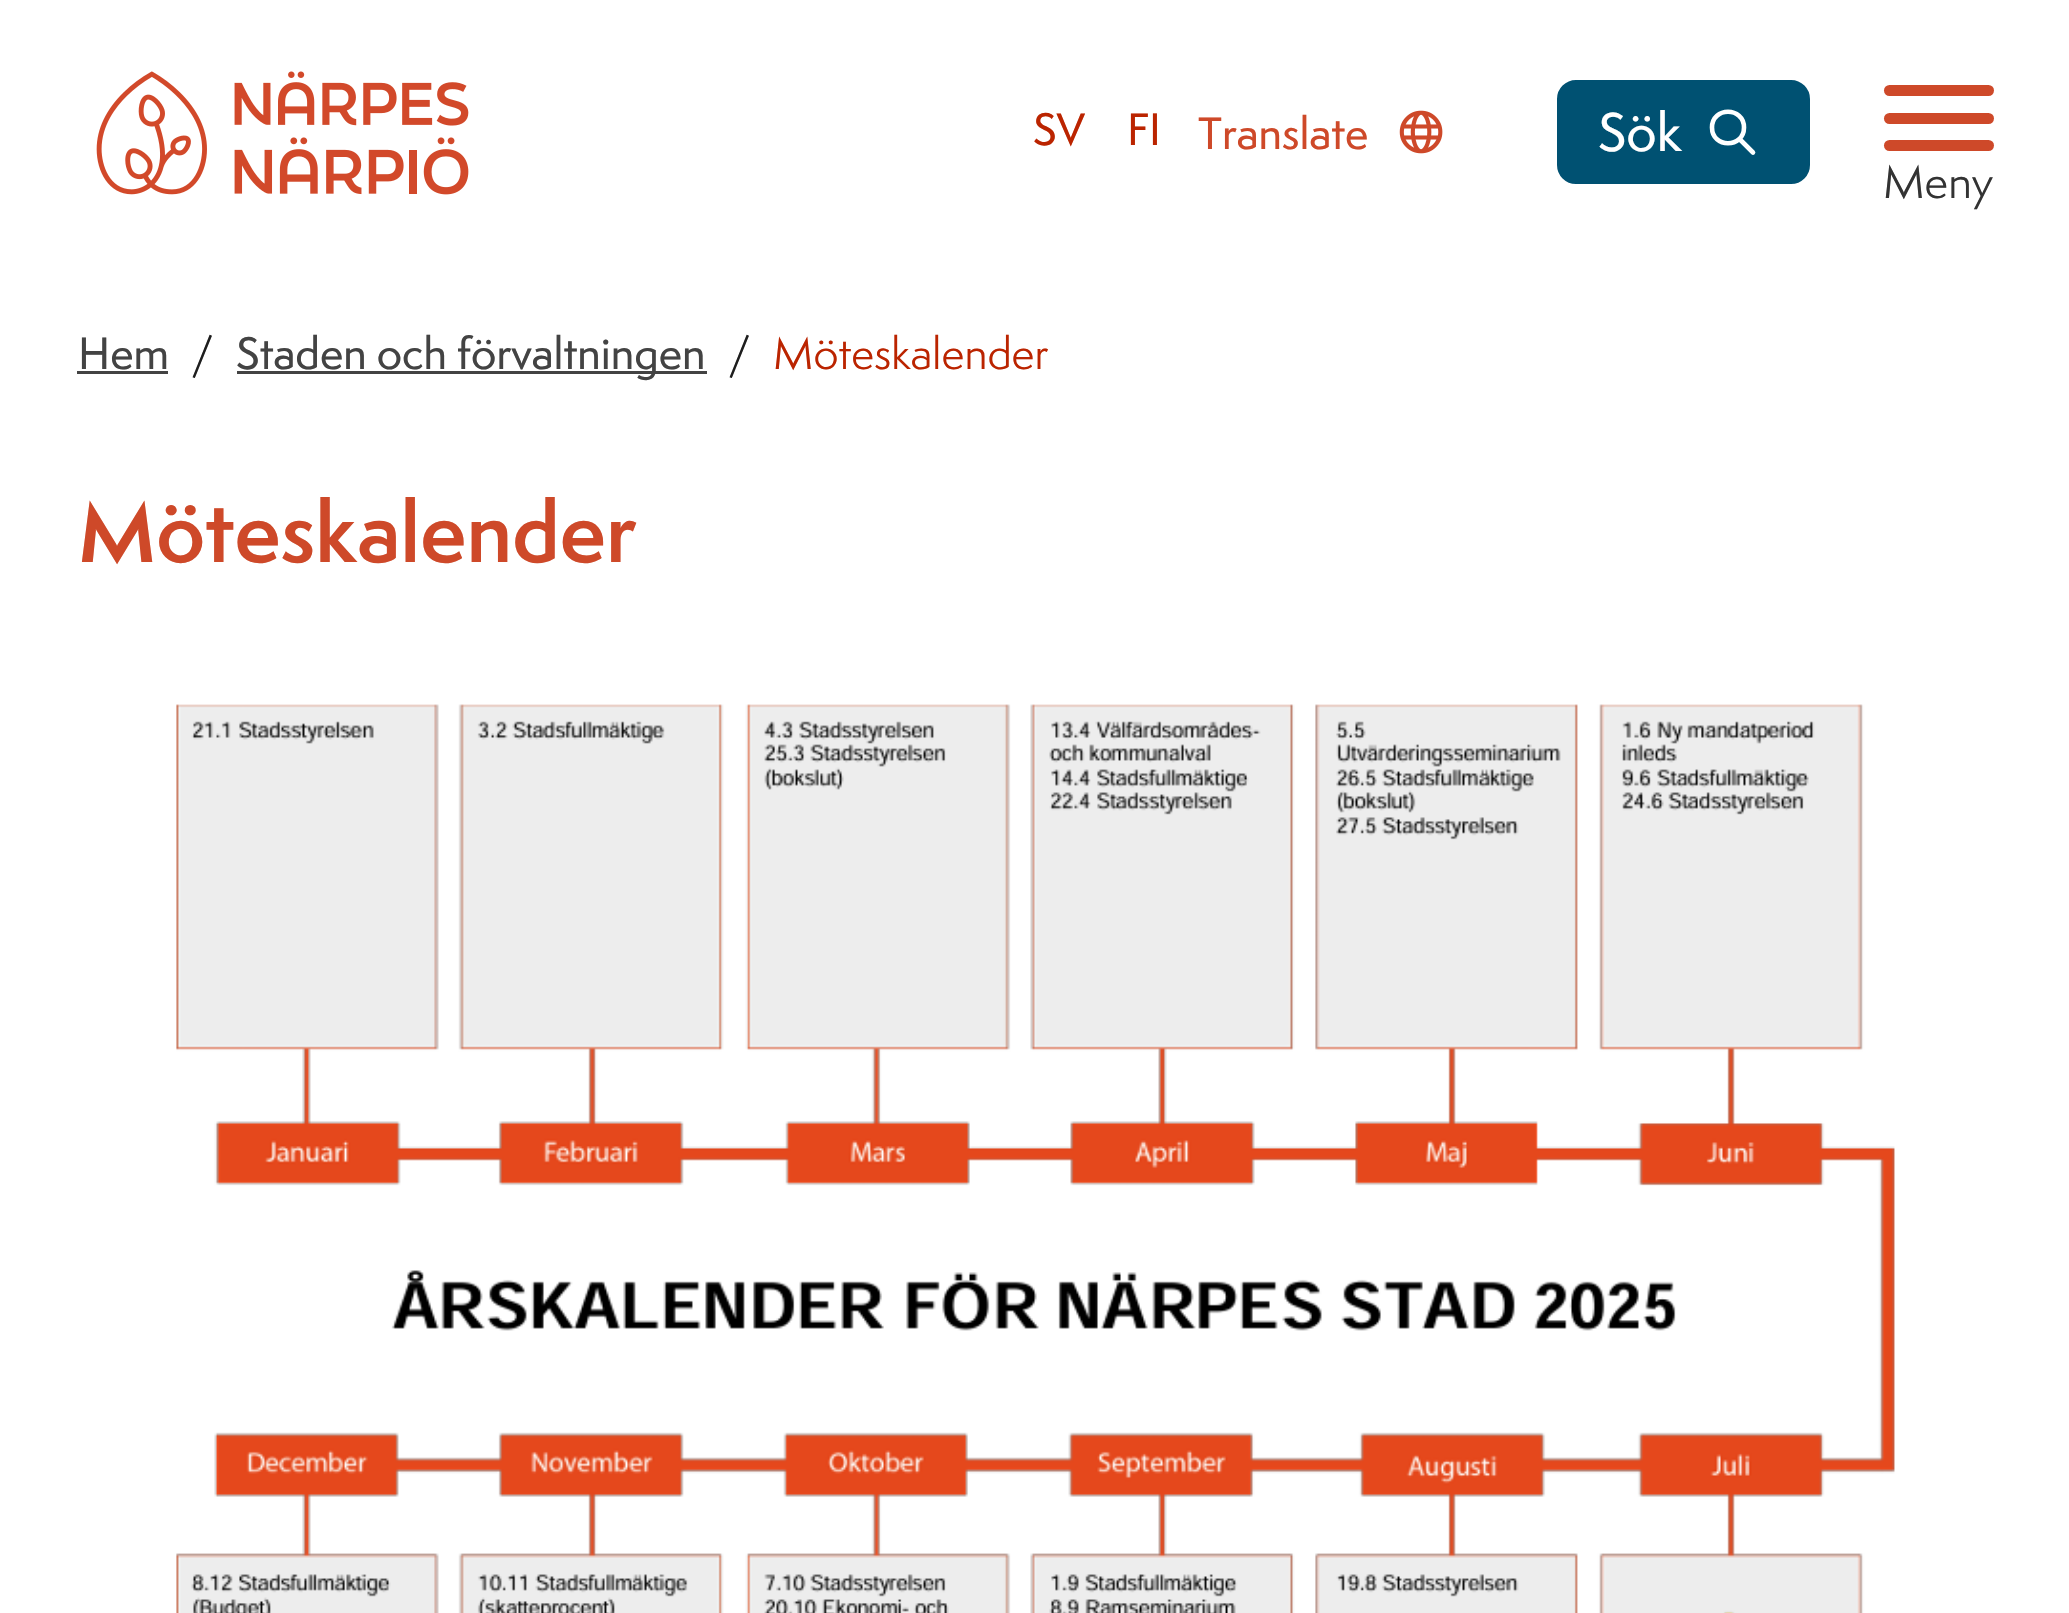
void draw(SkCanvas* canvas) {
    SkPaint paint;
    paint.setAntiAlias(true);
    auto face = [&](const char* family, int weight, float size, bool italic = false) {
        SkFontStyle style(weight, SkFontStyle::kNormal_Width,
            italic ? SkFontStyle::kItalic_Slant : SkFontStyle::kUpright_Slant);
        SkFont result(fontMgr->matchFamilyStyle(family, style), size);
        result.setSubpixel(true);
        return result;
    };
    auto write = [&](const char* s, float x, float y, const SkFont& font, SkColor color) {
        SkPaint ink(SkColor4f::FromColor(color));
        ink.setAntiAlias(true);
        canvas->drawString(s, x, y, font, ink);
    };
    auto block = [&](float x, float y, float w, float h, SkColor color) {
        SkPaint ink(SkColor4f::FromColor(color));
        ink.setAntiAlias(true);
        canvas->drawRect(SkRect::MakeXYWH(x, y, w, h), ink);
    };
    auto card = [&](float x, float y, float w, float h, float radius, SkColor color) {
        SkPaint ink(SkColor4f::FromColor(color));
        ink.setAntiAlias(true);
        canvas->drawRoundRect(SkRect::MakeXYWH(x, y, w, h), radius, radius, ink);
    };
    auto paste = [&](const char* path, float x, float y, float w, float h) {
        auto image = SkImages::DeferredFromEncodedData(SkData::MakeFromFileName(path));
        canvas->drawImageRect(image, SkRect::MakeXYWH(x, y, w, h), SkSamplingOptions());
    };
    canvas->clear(SK_ColorWHITE);
    paste("pic1.png", 96, 71, 373, 124);
    auto kFont1 = face("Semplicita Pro", 500, 41.75f);
    write("SV", 1033, 145, kFont1, SkColorSetRGB(187, 36, 0));
    write("FI", 1127, 145, kFont1, SkColorSetRGB(187, 36, 0));
    write("Translate", 1198, 149, kFont1, SkColorSetRGB(206, 73, 41));
    paste("pic2.png", 1399, 110, 44, 44);
    paint.setColor(SkColorSetRGB(0, 81, 114));
    canvas->drawRoundRect(SkRect::MakeXYWH(1560, 83, 247, 98), 16, 16, paint);
    paint.setStyle(SkPaint::kStroke_Style);
    paint.setStrokeWidth(6);
    canvas->drawRoundRect(SkRect::MakeXYWH(1560, 83, 247, 98), 16, 16, paint);
    auto kFont2 = face("Semplicita Pro", 500, 50);
    write("Sök", 1598, 151, kFont2, SK_ColorWHITE);
    paint.setStrokeWidth(4.6f);
    paint.setStrokeCap(SkPaint::kRound_Cap);
    paint.setStrokeJoin(SkPaint::kRound_Join);
    paint.setColor(SK_ColorWHITE);
    canvas->drawPath(SkPathBuilder().moveTo(1753, 152.5f).lineTo(1739.5f, 139).moveTo(1744, 127.5f).cubicTo(1744, 148.5f, 1712, 148.5f, 1712, 127.5f).cubicTo(1712, 106.5f, 1744, 106.5f, 1744, 127.5f).close().detach(), paint);
    card(1884, 113, 110, 11, 5.5f, SkColorSetRGB(206, 73, 41));
    card(1884, 85, 110, 11, 5.5f, SkColorSetRGB(206, 73, 41));
    card(1884, 140, 110, 11, 5.5f, SkColorSetRGB(206, 73, 41));
    auto kFont3 = face("Semplicita Pro", 400, 43);
    write("Meny", 1883, 198, kFont3, SkColorSetRGB(51, 51, 51));
    write("Hem", 78, 369, kFont1, SkColorSetRGB(67, 67, 67));
    block(77, 371, 91, 3, SkColorSetRGB(67, 67, 67));
    auto kFont4 = face("Semplicita Pro", 400, 41.75f);
    write("/", 191, 369, kFont4, SkColorSetRGB(30, 30, 30));
    block(237, 371, 470, 3, SkColorSetRGB(67, 67, 67));
    write("Staden och förvaltningen", 236, 369, kFont1, SkColorSetRGB(67, 67, 67));
    write("/", 728, 369, kFont4, SkColorSetRGB(30, 30, 30));
    write("Möteskalender", 773, 369, kFont4, SkColorSetRGB(187, 36, 0));
    auto kFont5 = face("Semplicita Pro", 600, 79.25f);
    write("Möteskalender", 78, 562, kFont5, SkColorSetRGB(206, 73, 41));
    paste("pic3.png", 176, 704, 1719, 909);
}
